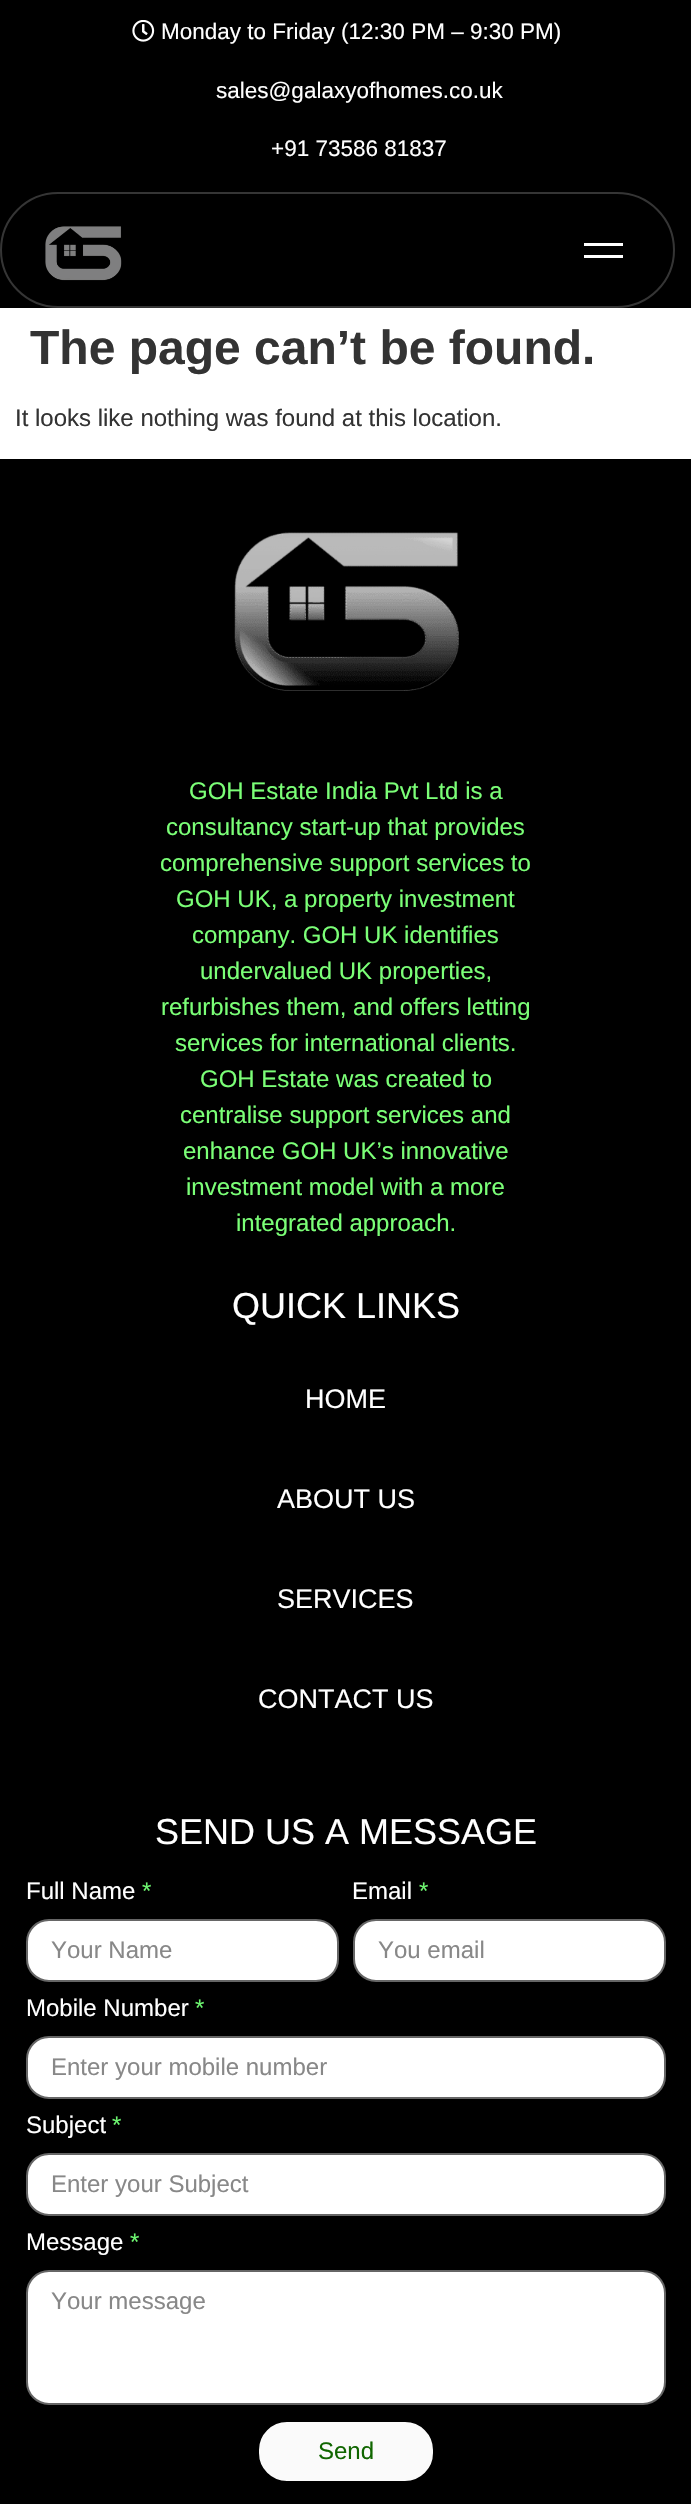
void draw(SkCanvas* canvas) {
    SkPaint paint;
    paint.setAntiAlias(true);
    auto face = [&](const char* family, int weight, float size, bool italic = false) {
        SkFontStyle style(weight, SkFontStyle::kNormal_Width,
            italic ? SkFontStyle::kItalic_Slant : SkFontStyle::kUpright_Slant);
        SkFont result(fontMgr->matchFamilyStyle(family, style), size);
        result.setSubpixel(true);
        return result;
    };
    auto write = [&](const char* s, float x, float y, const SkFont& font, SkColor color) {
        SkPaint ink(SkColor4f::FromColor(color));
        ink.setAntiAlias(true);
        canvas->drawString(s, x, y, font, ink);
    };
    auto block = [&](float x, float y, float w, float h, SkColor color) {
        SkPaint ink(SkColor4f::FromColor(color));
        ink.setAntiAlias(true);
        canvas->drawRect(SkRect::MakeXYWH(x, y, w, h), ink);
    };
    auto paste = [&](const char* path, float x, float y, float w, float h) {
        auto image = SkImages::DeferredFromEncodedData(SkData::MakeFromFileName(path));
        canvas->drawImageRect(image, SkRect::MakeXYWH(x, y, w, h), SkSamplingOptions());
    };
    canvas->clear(SK_ColorWHITE);
    block(0, 0, 691, 308, SK_ColorBLACK);
    paste("pic1.png", 132, 20, 23, 22);
    auto kFont1 = face("Liberation Sans", 400, 22.5f);
    write("Monday to Friday (12:30 PM – 9:30 PM)", 161, 39, kFont1, SK_ColorWHITE);
    write("sales@galaxyofhomes.co.uk", 216, 98, kFont1, SK_ColorWHITE);
    write("+91 73586 81837", 271, 156, kFont1, SK_ColorWHITE);
    paint.setStyle(SkPaint::kStroke_Style);
    paint.setStrokeWidth(2);
    paint.setColor(SkColorSetRGB(53, 53, 53));
    canvas->drawRoundRect(SkRect::MakeXYWH(1, 193, 673, 114), 57, 57, paint);
    paste("pic2.png", 45, 226, 77, 55);
    block(584, 243, 39, 3, SK_ColorWHITE);
    block(584, 255, 39, 3, SK_ColorWHITE);
    auto kFont2 = face("Liberation Sans", 700, 48);
    write("The page can’t be found.", 30, 364, kFont2, SkColorSetRGB(51, 51, 51));
    auto kFont3 = face("Liberation Sans", 400, 24);
    write("It looks like nothing was found at this location.", 15, 426, kFont3, SkColorSetRGB(51, 51, 51));
    block(0, 459, 691, 2045, SK_ColorBLACK);
    paste("pic3.png", 234, 532, 225, 159);
    write("GOH Estate India Pvt Ltd is a", 189, 799, kFont3, SkColorSetRGB(123, 255, 119));
    write("consultancy start-up that provides", 166, 835, kFont3, SkColorSetRGB(123, 255, 119));
    write("comprehensive support services to", 160, 871, kFont3, SkColorSetRGB(123, 255, 119));
    write("GOH UK, a property investment", 176, 907, kFont3, SkColorSetRGB(123, 255, 119));
    write("company. GOH UK identifies", 192, 943, kFont3, SkColorSetRGB(123, 255, 119));
    write("undervalued UK properties,", 200, 979, kFont3, SkColorSetRGB(123, 255, 119));
    write("refurbishes them, and offers letting", 161, 1015, kFont3, SkColorSetRGB(123, 255, 119));
    write("services for international clients.", 175, 1051, kFont3, SkColorSetRGB(123, 255, 119));
    write("GOH Estate was created to", 200, 1087, kFont3, SkColorSetRGB(123, 255, 119));
    write("centralise support services and", 180, 1123, kFont3, SkColorSetRGB(123, 255, 119));
    write("enhance GOH UK’s innovative", 183, 1159, kFont3, SkColorSetRGB(123, 255, 119));
    write("investment model with a more", 186, 1195, kFont3, SkColorSetRGB(123, 255, 119));
    write("integrated approach.", 236, 1231, kFont3, SkColorSetRGB(123, 255, 119));
    auto kFont4 = face("Liberation Sans", 400, 36);
    write("QUICK LINKS", 232, 1318, kFont4, SK_ColorWHITE);
    auto kFont5 = face("Liberation Sans", 400, 27);
    write("HOME", 305, 1408, kFont5, SK_ColorWHITE);
    write("ABOUT US", 277, 1508, kFont5, SK_ColorWHITE);
    write("SERVICES", 277, 1608, kFont5, SK_ColorWHITE);
    write("CONTACT US", 258, 1708, kFont5, SK_ColorWHITE);
    write("SEND US A MESSAGE", 155, 1844, kFont4, SK_ColorWHITE);
    write("Full Name", 26, 1899, kFont3, SK_ColorWHITE);
    write("*", 142, 1899, kFont3, SkColorSetRGB(109, 245, 112));
    paint.setStyle(SkPaint::kFill_Style);
    paint.setColor(SK_ColorWHITE);
    canvas->drawRoundRect(SkRect::MakeXYWH(27, 1920, 311, 61), 22, 22, paint);
    paint.setStyle(SkPaint::kStroke_Style);
    paint.setColor(SkColorSetRGB(102, 102, 102));
    canvas->drawRoundRect(SkRect::MakeXYWH(27, 1920, 311, 61), 22, 22, paint);
    write("Your Name", 51, 1958, kFont3, SkColorSetRGB(136, 136, 136));
    write("Email", 352, 1899, kFont3, SK_ColorWHITE);
    write("*", 419, 1899, kFont3, SkColorSetRGB(109, 245, 112));
    paint.setStyle(SkPaint::kFill_Style);
    paint.setColor(SK_ColorWHITE);
    canvas->drawRoundRect(SkRect::MakeXYWH(354, 1920, 311, 61), 22, 22, paint);
    paint.setStyle(SkPaint::kStroke_Style);
    paint.setColor(SkColorSetRGB(102, 102, 102));
    canvas->drawRoundRect(SkRect::MakeXYWH(354, 1920, 311, 61), 22, 22, paint);
    write("You email", 378, 1958, kFont3, SkColorSetRGB(136, 136, 136));
    write("Mobile Number", 26, 2016, kFont3, SK_ColorWHITE);
    write("*", 195, 2016, kFont3, SkColorSetRGB(109, 245, 112));
    paint.setStyle(SkPaint::kFill_Style);
    paint.setColor(SK_ColorWHITE);
    canvas->drawRoundRect(SkRect::MakeXYWH(27, 2037, 638, 61), 22, 22, paint);
    paint.setStyle(SkPaint::kStroke_Style);
    paint.setColor(SkColorSetRGB(102, 102, 102));
    canvas->drawRoundRect(SkRect::MakeXYWH(27, 2037, 638, 61), 22, 22, paint);
    write("Enter your mobile number", 51, 2075, kFont3, SkColorSetRGB(136, 136, 136));
    write("Subject", 26, 2133, kFont3, SK_ColorWHITE);
    write("*", 112, 2133, kFont3, SkColorSetRGB(109, 245, 112));
    paint.setStyle(SkPaint::kFill_Style);
    paint.setColor(SK_ColorWHITE);
    canvas->drawRoundRect(SkRect::MakeXYWH(27, 2154, 638, 61), 22, 22, paint);
    paint.setStyle(SkPaint::kStroke_Style);
    paint.setColor(SkColorSetRGB(102, 102, 102));
    canvas->drawRoundRect(SkRect::MakeXYWH(27, 2154, 638, 61), 22, 22, paint);
    write("Enter your Subject", 51, 2192, kFont3, SkColorSetRGB(136, 136, 136));
    write("Message", 26, 2250, kFont3, SK_ColorWHITE);
    write("*", 130, 2250, kFont3, SkColorSetRGB(109, 245, 112));
    paint.setStyle(SkPaint::kFill_Style);
    paint.setColor(SK_ColorWHITE);
    canvas->drawRoundRect(SkRect::MakeXYWH(27, 2271, 638, 133), 22, 22, paint);
    paint.setStyle(SkPaint::kStroke_Style);
    paint.setColor(SkColorSetRGB(102, 102, 102));
    canvas->drawRoundRect(SkRect::MakeXYWH(27, 2271, 638, 133), 22, 22, paint);
    write("Your message", 51, 2309, kFont3, SkColorSetRGB(136, 136, 136));
    paint.setStyle(SkPaint::kFill_Style);
    paint.setColor(SkColorSetRGB(250, 250, 250));
    canvas->drawRoundRect(SkRect::MakeXYWH(258, 2421, 176, 61), 29, 29, paint);
    paint.setStyle(SkPaint::kStroke_Style);
    paint.setColor(SK_ColorBLACK);
    canvas->drawRoundRect(SkRect::MakeXYWH(258, 2421, 176, 61), 29, 29, paint);
    write("Send", 318, 2459, kFont3, SkColorSetRGB(16, 102, 0));
}
